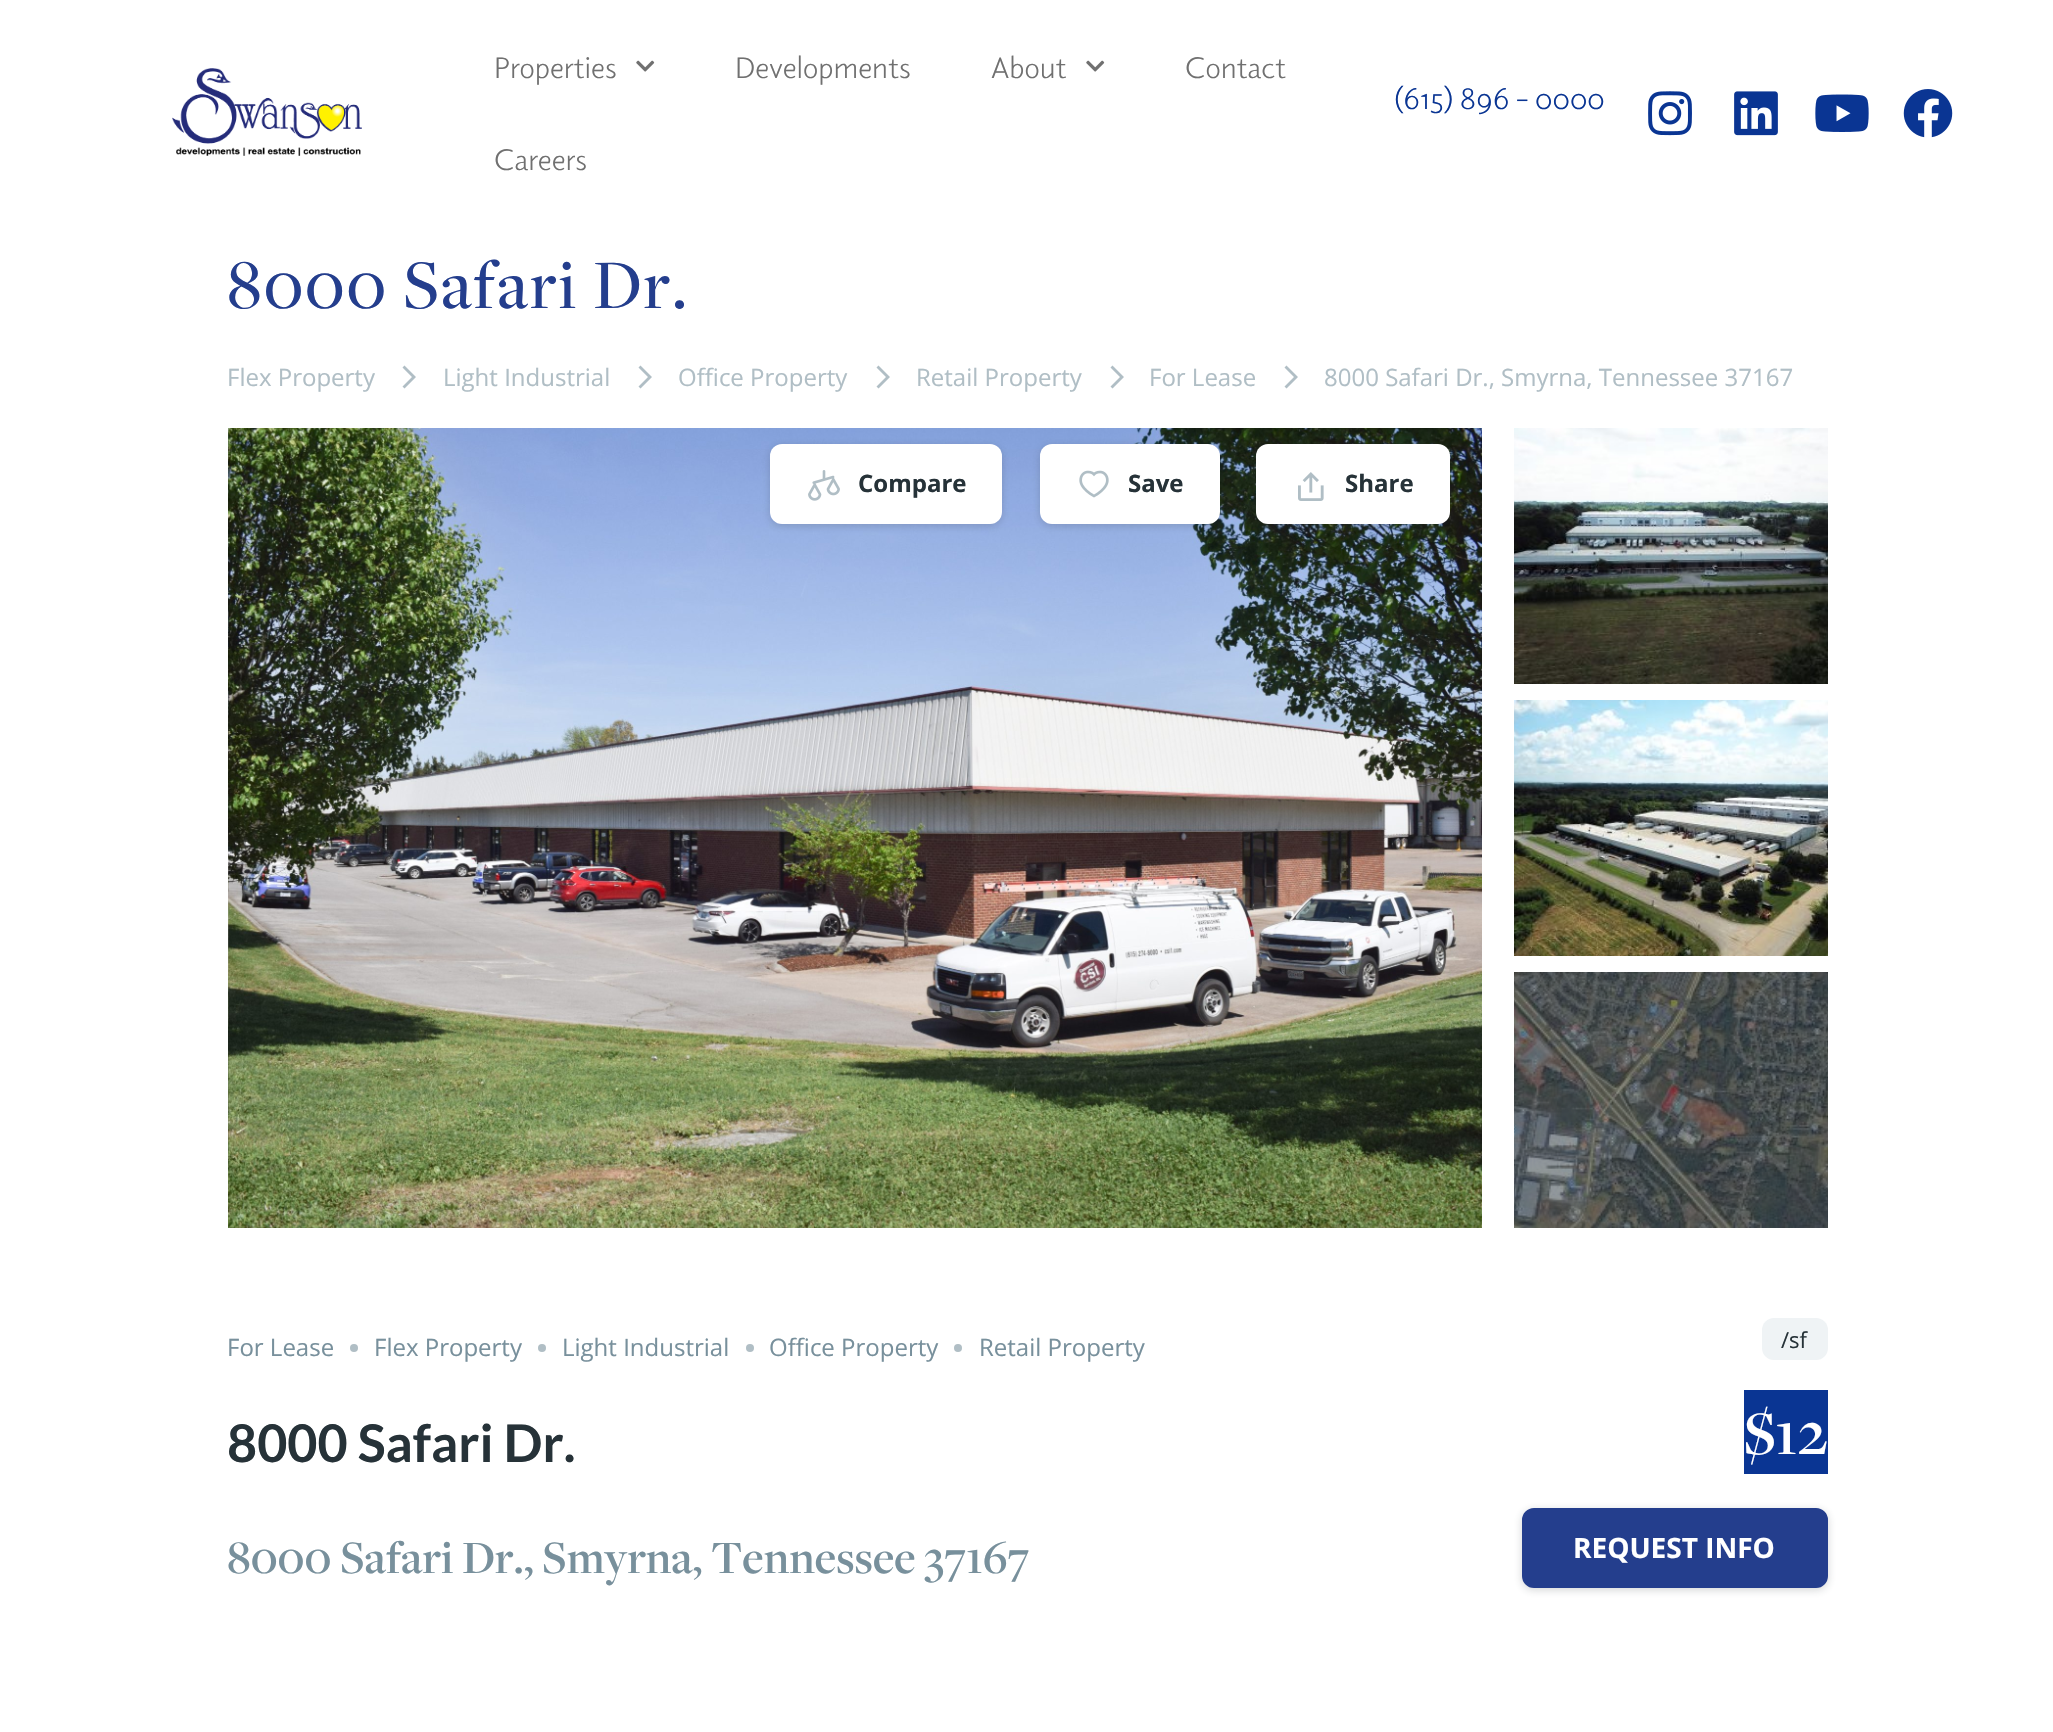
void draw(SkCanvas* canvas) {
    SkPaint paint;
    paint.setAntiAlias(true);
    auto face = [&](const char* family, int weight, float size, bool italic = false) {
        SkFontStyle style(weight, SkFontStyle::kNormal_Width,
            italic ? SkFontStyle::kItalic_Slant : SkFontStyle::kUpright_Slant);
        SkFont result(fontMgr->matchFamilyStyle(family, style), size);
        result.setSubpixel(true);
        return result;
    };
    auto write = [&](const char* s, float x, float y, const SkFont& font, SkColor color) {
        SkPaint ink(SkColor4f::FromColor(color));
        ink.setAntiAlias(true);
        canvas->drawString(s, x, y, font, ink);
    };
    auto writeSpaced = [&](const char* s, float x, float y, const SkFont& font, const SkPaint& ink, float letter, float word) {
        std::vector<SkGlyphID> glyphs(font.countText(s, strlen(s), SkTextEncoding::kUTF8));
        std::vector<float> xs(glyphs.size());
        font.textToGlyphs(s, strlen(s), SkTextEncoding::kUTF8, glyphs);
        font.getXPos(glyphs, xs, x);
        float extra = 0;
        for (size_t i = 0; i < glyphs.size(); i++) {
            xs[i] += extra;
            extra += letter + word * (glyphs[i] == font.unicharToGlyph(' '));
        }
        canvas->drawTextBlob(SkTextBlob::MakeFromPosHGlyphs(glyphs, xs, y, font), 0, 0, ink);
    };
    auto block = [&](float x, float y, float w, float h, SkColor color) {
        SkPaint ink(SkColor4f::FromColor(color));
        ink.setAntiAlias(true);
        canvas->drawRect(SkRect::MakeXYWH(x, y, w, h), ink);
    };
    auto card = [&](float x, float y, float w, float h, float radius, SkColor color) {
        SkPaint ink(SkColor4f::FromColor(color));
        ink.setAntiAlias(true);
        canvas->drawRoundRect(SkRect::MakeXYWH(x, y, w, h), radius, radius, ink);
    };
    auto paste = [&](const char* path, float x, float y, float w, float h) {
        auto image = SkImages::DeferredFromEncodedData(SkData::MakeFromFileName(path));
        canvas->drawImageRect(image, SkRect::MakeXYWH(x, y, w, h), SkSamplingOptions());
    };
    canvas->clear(SK_ColorWHITE);
    paste("pic1.png", 172, 68, 190, 88);
    auto kFont1 = face("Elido", 400, 30);
    write("Properties", 494, 78, kFont1, SkColorSetRGB(112, 112, 112));
    paste("pic2.png", 636, 60, 19, 12);
    write("Developments", 735, 78, kFont1, SkColorSetRGB(112, 112, 112));
    write("About", 991, 78, kFont1, SkColorSetRGB(112, 112, 112));
    paste("pic2.png", 1086, 60, 19, 12);
    write("Contact", 1185, 78, kFont1, SkColorSetRGB(112, 112, 112));
    write("Careers", 494, 170, kFont1, SkColorSetRGB(112, 112, 112));
    write("(615) 896 – 0000", 1393, 109, kFont1, SkColorSetRGB(10, 53, 147));
    paste("pic3.png", 1648, 91, 44, 45);
    paste("pic4.png", 1734, 91, 44, 45);
    paste("pic5.png", 1815, 94, 54, 38);
    paste("pic6.png", 1903, 89, 50, 49);
    auto kFont2 = face("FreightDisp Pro", 500, 72);
    paint.setColor(SkColorSetRGB(36, 62, 141));
    writeSpaced("8000 Safari Dr.", 227, 308, kFont2, paint, 2, 0);
    auto kFont3 = face("Open Sans", 400, 24);
    write("Flex Property", 227, 386, kFont3, SkColorSetRGB(176, 190, 197));
    paint.setColor(SkColorSetRGB(176, 190, 197));
    canvas->drawPath(SkPathBuilder().moveTo(412, 377).lineTo(402.5f, 367.5f).lineTo(404.5f, 365.5f).lineTo(416, 377).lineTo(404.5f, 388.5f).lineTo(402.5f, 386.5f).close().detach(), paint);
    write("Light Industrial", 443, 386, kFont3, SkColorSetRGB(176, 190, 197));
    canvas->drawPath(SkPathBuilder().moveTo(648, 377).lineTo(638.5f, 367.5f).lineTo(640.5f, 365.5f).lineTo(652, 377).lineTo(640.5f, 388.5f).lineTo(638.5f, 386.5f).close().detach(), paint);
    write("Office Property", 678, 386, kFont3, SkColorSetRGB(176, 190, 197));
    canvas->drawPath(SkPathBuilder().moveTo(886, 377).lineTo(876.5f, 367.5f).lineTo(878.5f, 365.5f).lineTo(890, 377).lineTo(878.5f, 388.5f).lineTo(876.5f, 386.5f).close().detach(), paint);
    write("Retail Property", 916, 386, kFont3, SkColorSetRGB(176, 190, 197));
    canvas->drawPath(SkPathBuilder().moveTo(1120, 377).lineTo(1110.5f, 367.5f).lineTo(1112.5f, 365.5f).lineTo(1124, 377).lineTo(1112.5f, 388.5f).lineTo(1110.5f, 386.5f).close().detach(), paint);
    write("For Lease", 1149, 386, kFont3, SkColorSetRGB(176, 190, 197));
    canvas->drawPath(SkPathBuilder().moveTo(1294, 377).lineTo(1284.5f, 367.5f).lineTo(1286.5f, 365.5f).lineTo(1298, 377).lineTo(1286.5f, 388.5f).lineTo(1284.5f, 386.5f).close().detach(), paint);
    write("8000 Safari Dr., Smyrna, Tennessee 37167", 1324, 386, kFont3, SkColorSetRGB(176, 190, 197));
    paste("pic7.png", 228, 428, 1254, 800);
    paint.setColor(SkColorSetARGB(51, 38, 50, 56));
    paint.setMaskFilter(SkMaskFilter::MakeBlur(kNormal_SkBlurStyle, 4));
    canvas->drawRoundRect(SkRect::MakeXYWH(770, 446, 232, 80), 12, 12, paint);
    paint.setMaskFilter(nullptr);
    card(770, 444, 232, 80, 12, SK_ColorWHITE);
    paste("pic8.png", 808, 470, 32, 31);
    auto kFont4 = face("Open Sans", 700, 24);
    write("Compare", 858, 492, kFont4, SkColorSetRGB(38, 50, 56));
    paint.setMaskFilter(SkMaskFilter::MakeBlur(kNormal_SkBlurStyle, 4));
    canvas->drawRoundRect(SkRect::MakeXYWH(1040, 446, 180, 80), 12, 12, paint);
    paint.setMaskFilter(nullptr);
    card(1040, 444, 180, 80, 12, SK_ColorWHITE);
    paste("pic9.png", 1079, 470, 30, 28);
    write("Save", 1128, 492, kFont4, SkColorSetRGB(38, 50, 56));
    paint.setMaskFilter(SkMaskFilter::MakeBlur(kNormal_SkBlurStyle, 4));
    canvas->drawRoundRect(SkRect::MakeXYWH(1256, 446, 194, 80), 12, 12, paint);
    paint.setMaskFilter(nullptr);
    card(1256, 444, 194, 80, 12, SK_ColorWHITE);
    paste("pic10.png", 1298, 472, 26, 29);
    write("Share", 1345, 492, kFont4, SkColorSetRGB(38, 50, 56));
    paste("pic11.png", 1514, 428, 314, 256);
    paste("pic12.png", 1514, 700, 314, 256);
    paste("pic13.png", 1514, 972, 314, 256);
    write("For Lease", 227, 1356, kFont3, SkColorSetRGB(120, 144, 156));
    paint.setColor(SkColorSetRGB(176, 190, 197));
    canvas->drawCircle(354, 1348, 4, paint);
    write("Flex Property", 374, 1356, kFont3, SkColorSetRGB(120, 144, 156));
    canvas->drawCircle(542, 1348, 4, paint);
    write("Light Industrial", 562, 1356, kFont3, SkColorSetRGB(120, 144, 156));
    canvas->drawCircle(750, 1348, 4, paint);
    write("Office Property", 769, 1356, kFont3, SkColorSetRGB(120, 144, 156));
    canvas->drawCircle(958, 1348, 4, paint);
    write("Retail Property", 979, 1356, kFont3, SkColorSetRGB(120, 144, 156));
    card(1762, 1318, 66, 42, 12, SkColorSetRGB(239, 243, 245));
    auto kFont5 = face("Open Sans", 400, 22);
    write("/sf", 1781, 1348, kFont5, SkColorSetRGB(38, 50, 56));
    block(1744, 1390, 84, 84, SkColorSetRGB(10, 53, 147));
    auto kFont6 = face("FreightDisp Pro", 600, 64);
    write("$12", 1744, 1454, kFont6, SK_ColorWHITE);
    paint.setColor(SkColorSetARGB(51, 38, 50, 56));
    paint.setMaskFilter(SkMaskFilter::MakeBlur(kNormal_SkBlurStyle, 4));
    canvas->drawRoundRect(SkRect::MakeXYWH(1522, 1510, 306, 80), 12, 12, paint);
    paint.setMaskFilter(nullptr);
    paint.setColor(SkColorSetRGB(36, 62, 141));
    canvas->drawRoundRect(SkRect::MakeXYWH(1524, 1510, 302, 76), 10, 10, paint);
    paint.setStyle(SkPaint::kStroke_Style);
    paint.setStrokeWidth(4);
    canvas->drawRoundRect(SkRect::MakeXYWH(1524, 1510, 302, 76), 10, 10, paint);
    auto kFont7 = face("Open Sans", 700, 28);
    write("REQUEST INFO", 1573, 1558, kFont7, SK_ColorWHITE);
    auto kFont8 = face("Lato", 700, 52);
    write("8000 Safari Dr.", 227, 1462, kFont8, SkColorSetRGB(38, 50, 56));
    auto kFont9 = face("FreightDisp Pro", 600, 48);
    write("8000 Safari Dr., Smyrna, Tennessee 37167", 227, 1573, kFont9, SkColorSetRGB(120, 144, 156));
}
